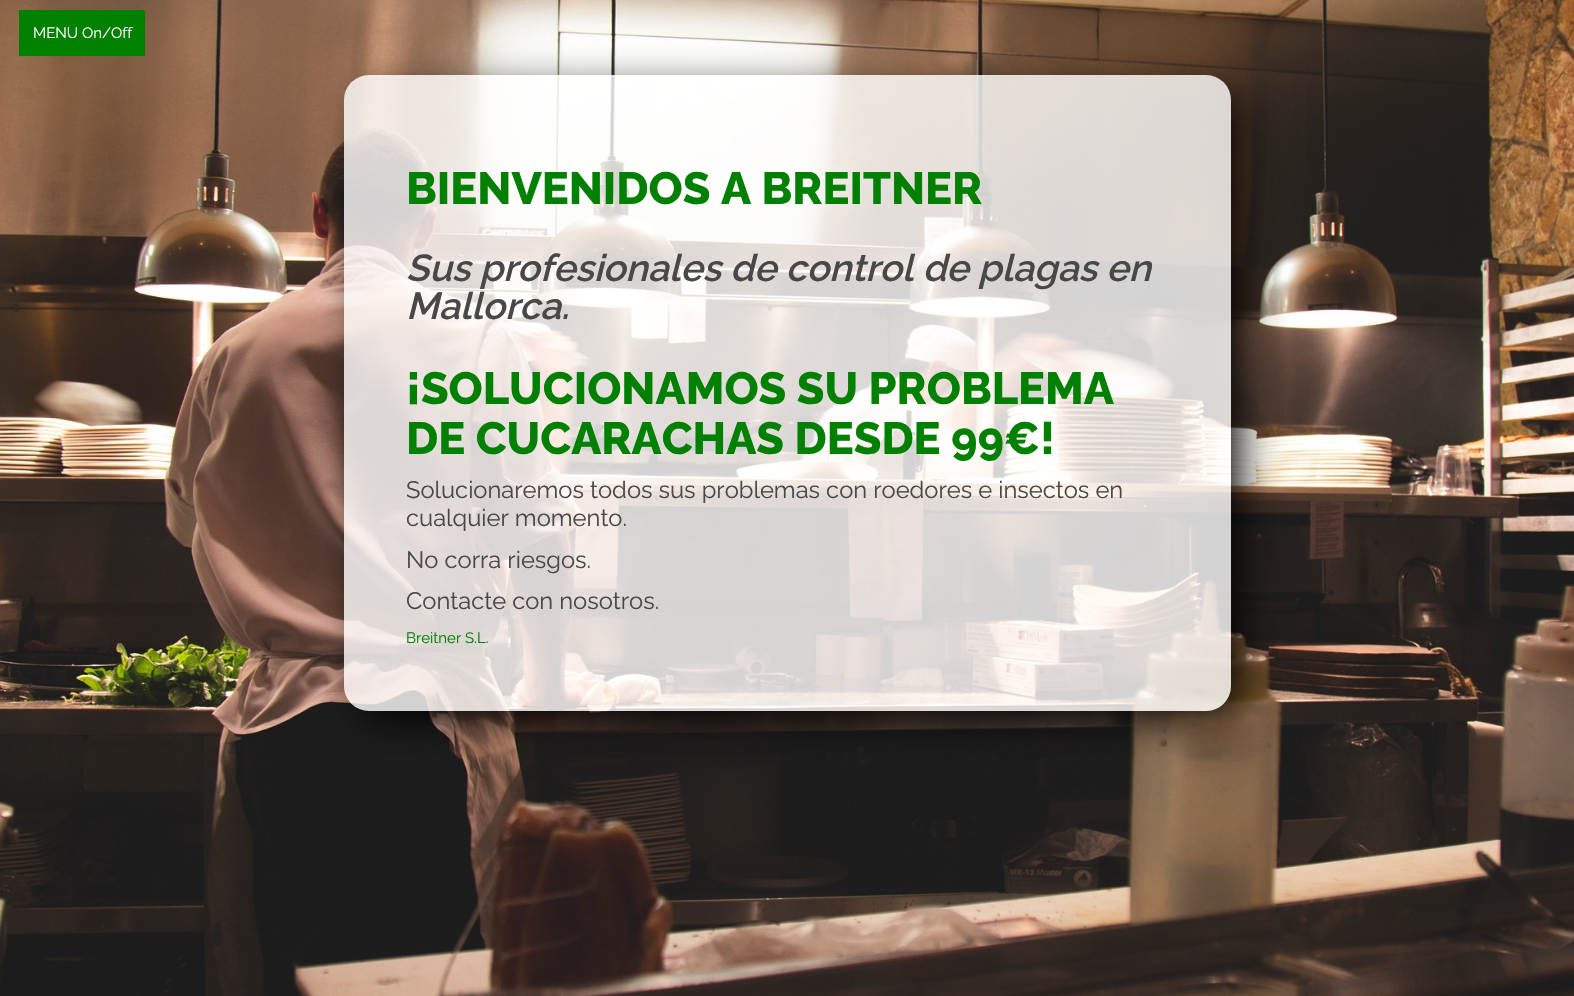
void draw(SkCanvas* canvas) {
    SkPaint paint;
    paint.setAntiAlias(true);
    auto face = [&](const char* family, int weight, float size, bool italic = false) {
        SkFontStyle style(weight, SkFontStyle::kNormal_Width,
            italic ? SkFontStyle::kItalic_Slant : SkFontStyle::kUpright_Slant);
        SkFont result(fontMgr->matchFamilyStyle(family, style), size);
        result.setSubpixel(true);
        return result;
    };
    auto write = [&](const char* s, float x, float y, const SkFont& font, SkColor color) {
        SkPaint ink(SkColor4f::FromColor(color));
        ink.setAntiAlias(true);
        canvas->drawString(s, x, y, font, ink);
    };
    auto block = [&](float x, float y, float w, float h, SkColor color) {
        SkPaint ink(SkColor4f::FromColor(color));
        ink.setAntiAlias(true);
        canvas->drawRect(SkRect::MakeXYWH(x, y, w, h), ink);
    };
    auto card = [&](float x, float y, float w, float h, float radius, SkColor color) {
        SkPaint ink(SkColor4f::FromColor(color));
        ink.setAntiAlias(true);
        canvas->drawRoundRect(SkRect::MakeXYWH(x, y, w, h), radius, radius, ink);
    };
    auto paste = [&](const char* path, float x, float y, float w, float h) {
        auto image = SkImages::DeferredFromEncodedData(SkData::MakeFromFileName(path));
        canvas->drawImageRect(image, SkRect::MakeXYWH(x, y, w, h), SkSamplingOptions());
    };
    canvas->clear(SK_ColorWHITE);
    paste("pic1.png", 0, 0, 1574, 996);
    block(19, 10, 126, 46, SkColorSetRGB(0, 128, 0));
    auto kFont1 = face("Raleway", 400, 15);
    write("MENU On/Off", 33, 38, kFont1, SK_ColorWHITE);
    canvas->save();
    canvas->clipPath(SkPathBuilder(SkPathFillType::kEvenOdd).moveTo(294, 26).lineTo(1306, 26).lineTo(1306, 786).lineTo(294, 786).close().moveTo(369, 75).lineTo(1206, 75).cubicTo(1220, 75, 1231, 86, 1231, 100).lineTo(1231, 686).cubicTo(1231, 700, 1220, 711, 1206, 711).lineTo(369, 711).cubicTo(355, 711, 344, 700, 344, 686).lineTo(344, 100).cubicTo(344, 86, 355, 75, 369, 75).close().detach(), true);
    paint.setColor(SK_ColorBLACK);
    paint.setMaskFilter(SkMaskFilter::MakeBlur(kNormal_SkBlurStyle, 22));
    canvas->drawRoundRect(SkRect::MakeXYWH(361, 93, 878, 626), 20, 20, paint);
    paint.setMaskFilter(nullptr);
    canvas->restore();
    card(344, 75, 887, 636, 25, SkColorSetARGB(204, 255, 255, 255));
    auto kFont2 = face("Raleway", 800, 45);
    write("BIENVENIDOS A BREITNER", 406, 204, kFont2, SkColorSetRGB(0, 128, 0));
    auto kFont3 = face("Raleway", 600, 37.5f, true);
    write("Sus profesionales de control de plagas en", 406, 281, kFont3, SkColorSetRGB(72, 72, 72));
    write("Mallorca.", 406, 319, kFont3, SkColorSetRGB(72, 72, 72));
    write("¡SOLUCIONAMOS SU PROBLEMA", 406, 404, kFont2, SkColorSetRGB(0, 128, 0));
    write("DE CUCARACHAS DESDE 99€!", 406, 454, kFont2, SkColorSetRGB(0, 128, 0));
    auto kFont4 = face("Raleway", 400, 23.75f);
    write("Solucionaremos todos sus problemas con roedores e insectos en", 406, 498, kFont4, SkColorSetRGB(72, 72, 72));
    write("cualquier momento.", 406, 526, kFont4, SkColorSetRGB(72, 72, 72));
    write("No corra riesgos.", 406, 568, kFont4, SkColorSetRGB(72, 72, 72));
    write("Contacte con nosotros.", 406, 609, kFont4, SkColorSetRGB(72, 72, 72));
    write("Breitner S.L.", 406, 643, kFont1, SkColorSetRGB(0, 128, 0));
}
